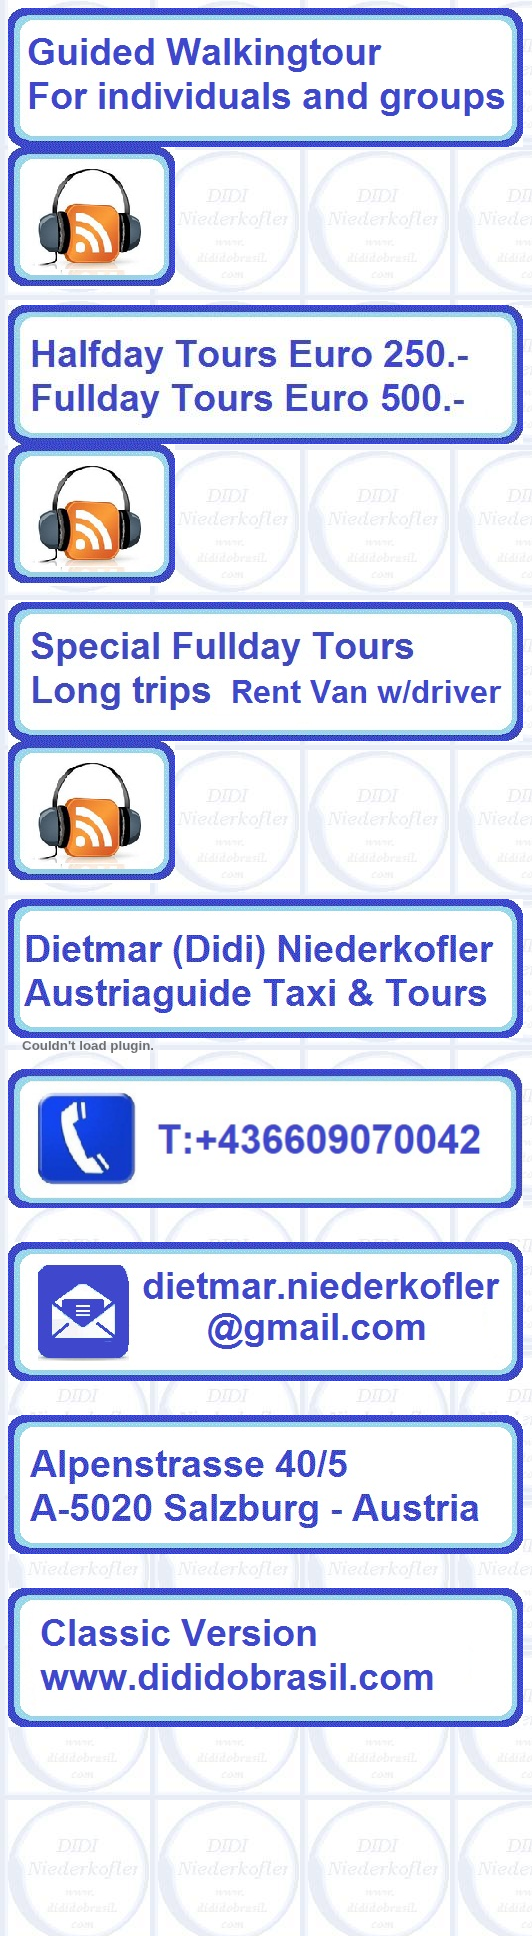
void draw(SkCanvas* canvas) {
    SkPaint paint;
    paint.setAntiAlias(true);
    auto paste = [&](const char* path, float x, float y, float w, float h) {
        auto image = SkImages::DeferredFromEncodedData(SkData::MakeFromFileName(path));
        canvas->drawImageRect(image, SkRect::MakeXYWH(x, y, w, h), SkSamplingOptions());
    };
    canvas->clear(SK_ColorWHITE);
    paste("pic1.png", 0, 0, 532, 1936);
    paste("pic2.png", 8, 8, 515, 139);
    paste("pic3.png", 8, 147, 167, 142);
    paste("pic4.png", 8, 305, 515, 139);
    paste("pic3.png", 8, 444, 167, 142);
    paste("pic5.png", 8, 602, 515, 139);
    paste("pic3.png", 8, 741, 167, 142);
    paste("pic6.png", 8, 899, 515, 139);
    paste("pic7.png", 16, 1038, 144, 15);
    paste("pic8.png", 8, 1069, 515, 139);
    paste("pic9.png", 8, 1242, 515, 139);
    paste("pic10.png", 8, 1415, 515, 139);
    paste("pic11.png", 8, 1588, 515, 139);
}
